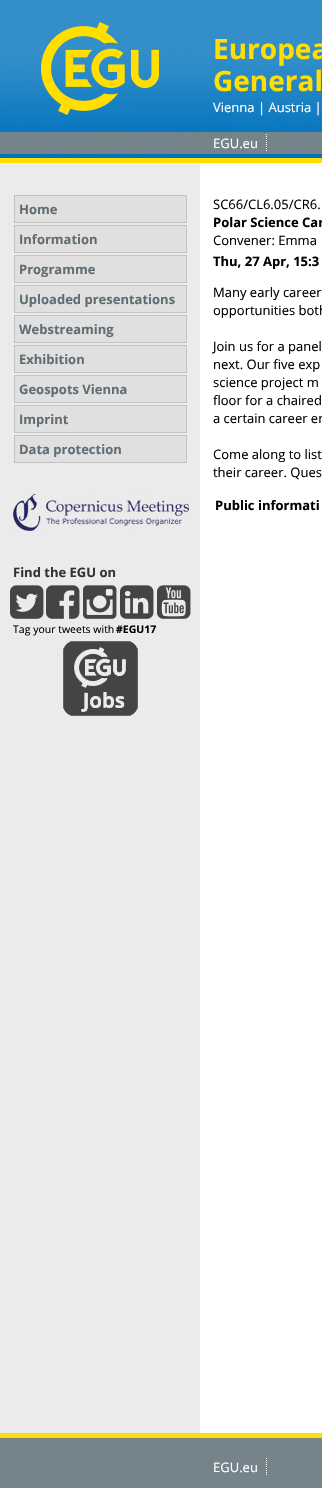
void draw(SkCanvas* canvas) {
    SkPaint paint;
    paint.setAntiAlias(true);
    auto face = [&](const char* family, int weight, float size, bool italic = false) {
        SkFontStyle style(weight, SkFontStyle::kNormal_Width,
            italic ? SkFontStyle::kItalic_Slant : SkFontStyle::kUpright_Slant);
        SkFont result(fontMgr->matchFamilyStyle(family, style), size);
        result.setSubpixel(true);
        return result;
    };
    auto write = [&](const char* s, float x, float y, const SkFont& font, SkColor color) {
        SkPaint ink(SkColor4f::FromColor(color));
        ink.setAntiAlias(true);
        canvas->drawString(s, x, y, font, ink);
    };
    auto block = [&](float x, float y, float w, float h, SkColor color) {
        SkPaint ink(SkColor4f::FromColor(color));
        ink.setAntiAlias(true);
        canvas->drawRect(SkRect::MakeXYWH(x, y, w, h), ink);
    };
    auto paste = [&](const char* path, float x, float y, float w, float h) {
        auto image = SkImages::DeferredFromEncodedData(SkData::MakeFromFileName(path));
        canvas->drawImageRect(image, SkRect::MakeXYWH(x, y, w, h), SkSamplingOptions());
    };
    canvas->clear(SK_ColorWHITE);
    block(0, 195, 200, 1238, SkColorSetRGB(235, 235, 235));
    block(0, 0, 322, 22, SkColorSetRGB(52, 142, 202));
    paste("pic1.png", 0, 22, 322, 173);
    auto kFont1 = face("Open Sans", 700, 28);
    write("Europea", 213, 59, kFont1, SkColorSetRGB(255, 222, 0));
    write("General", 213, 91, kFont1, SkColorSetRGB(255, 222, 0));
    auto kFont2 = face("Open Sans", 400, 13);
    write("Vienna | Austria |", 213, 112, kFont2, SK_ColorWHITE);
    write("EGU.eu", 213, 148, kFont2, SK_ColorWHITE);
    paint.setStyle(SkPaint::kStroke_Style);
    paint.setStrokeWidth(1);
    paint.setColor(SK_ColorWHITE);
    paint.setPathEffect(SkDashPathEffect::Make({{1, 1}}, 0));
    canvas->drawPath(SkPathBuilder().moveTo(266.5f, 134).lineTo(266.5f, 152).detach(), paint);
    paint.setPathEffect(nullptr);
    paint.setStyle(SkPaint::kFill_Style);
    paint.setColor(SkColorSetRGB(224, 224, 224));
    canvas->drawRect(SkRect::MakeXYWH(14.5f, 195.5f, 172, 27), paint);
    paint.setStyle(SkPaint::kStroke_Style);
    paint.setColor(SkColorSetRGB(195, 195, 195));
    canvas->drawRect(SkRect::MakeXYWH(14.5f, 195.5f, 172, 27), paint);
    auto kFont3 = face("Open Sans", 700, 13);
    write("Home", 19, 214, kFont3, SkColorSetRGB(98, 109, 115));
    paint.setStyle(SkPaint::kFill_Style);
    paint.setColor(SkColorSetRGB(224, 224, 224));
    canvas->drawRect(SkRect::MakeXYWH(14.5f, 225.5f, 172, 27), paint);
    paint.setStyle(SkPaint::kStroke_Style);
    paint.setColor(SkColorSetRGB(195, 195, 195));
    canvas->drawRect(SkRect::MakeXYWH(14.5f, 225.5f, 172, 27), paint);
    write("Information", 19, 244, kFont3, SkColorSetRGB(98, 109, 115));
    paint.setStyle(SkPaint::kFill_Style);
    paint.setColor(SkColorSetRGB(224, 224, 224));
    canvas->drawRect(SkRect::MakeXYWH(14.5f, 255.5f, 172, 27), paint);
    paint.setStyle(SkPaint::kStroke_Style);
    paint.setColor(SkColorSetRGB(195, 195, 195));
    canvas->drawRect(SkRect::MakeXYWH(14.5f, 255.5f, 172, 27), paint);
    write("Programme", 19, 274, kFont3, SkColorSetRGB(98, 109, 115));
    paint.setStyle(SkPaint::kFill_Style);
    paint.setColor(SkColorSetRGB(224, 224, 224));
    canvas->drawRect(SkRect::MakeXYWH(14.5f, 285.5f, 172, 27), paint);
    paint.setStyle(SkPaint::kStroke_Style);
    paint.setColor(SkColorSetRGB(195, 195, 195));
    canvas->drawRect(SkRect::MakeXYWH(14.5f, 285.5f, 172, 27), paint);
    write("Uploaded presentations", 19, 304, kFont3, SkColorSetRGB(98, 109, 115));
    paint.setStyle(SkPaint::kFill_Style);
    paint.setColor(SkColorSetRGB(224, 224, 224));
    canvas->drawRect(SkRect::MakeXYWH(14.5f, 315.5f, 172, 27), paint);
    paint.setStyle(SkPaint::kStroke_Style);
    paint.setColor(SkColorSetRGB(195, 195, 195));
    canvas->drawRect(SkRect::MakeXYWH(14.5f, 315.5f, 172, 27), paint);
    write("Webstreaming", 19, 334, kFont3, SkColorSetRGB(98, 109, 115));
    paint.setStyle(SkPaint::kFill_Style);
    paint.setColor(SkColorSetRGB(224, 224, 224));
    canvas->drawRect(SkRect::MakeXYWH(14.5f, 345.5f, 172, 27), paint);
    paint.setStyle(SkPaint::kStroke_Style);
    paint.setColor(SkColorSetRGB(195, 195, 195));
    canvas->drawRect(SkRect::MakeXYWH(14.5f, 345.5f, 172, 27), paint);
    write("Exhibition", 19, 364, kFont3, SkColorSetRGB(98, 109, 115));
    paint.setStyle(SkPaint::kFill_Style);
    paint.setColor(SkColorSetRGB(224, 224, 224));
    canvas->drawRect(SkRect::MakeXYWH(14.5f, 375.5f, 172, 27), paint);
    paint.setStyle(SkPaint::kStroke_Style);
    paint.setColor(SkColorSetRGB(195, 195, 195));
    canvas->drawRect(SkRect::MakeXYWH(14.5f, 375.5f, 172, 27), paint);
    write("Geospots Vienna", 19, 394, kFont3, SkColorSetRGB(98, 109, 115));
    paint.setStyle(SkPaint::kFill_Style);
    paint.setColor(SkColorSetRGB(224, 224, 224));
    canvas->drawRect(SkRect::MakeXYWH(14.5f, 405.5f, 172, 27), paint);
    paint.setStyle(SkPaint::kStroke_Style);
    paint.setColor(SkColorSetRGB(195, 195, 195));
    canvas->drawRect(SkRect::MakeXYWH(14.5f, 405.5f, 172, 27), paint);
    write("Imprint", 19, 424, kFont3, SkColorSetRGB(98, 109, 115));
    paint.setStyle(SkPaint::kFill_Style);
    paint.setColor(SkColorSetRGB(224, 224, 224));
    canvas->drawRect(SkRect::MakeXYWH(14.5f, 435.5f, 172, 27), paint);
    paint.setStyle(SkPaint::kStroke_Style);
    paint.setColor(SkColorSetRGB(195, 195, 195));
    canvas->drawRect(SkRect::MakeXYWH(14.5f, 435.5f, 172, 27), paint);
    write("Data protection", 19, 454, kFont3, SkColorSetRGB(98, 109, 115));
    paste("pic2.png", 13, 494, 176, 37);
    write("Find the EGU on", 13, 577, kFont3, SkColorSetRGB(51, 51, 51));
    paste("pic3.png", 10, 585, 34, 34);
    paste("pic4.png", 46, 585, 34, 34);
    paste("pic5.png", 83, 585, 34, 34);
    paste("pic6.png", 120, 585, 34, 34);
    paste("pic7.png", 157, 585, 34, 34);
    auto kFont4 = face("Open Sans", 400, 10.5f);
    write("Tag your tweets with", 13, 633, kFont4, SK_ColorBLACK);
    auto kFont5 = face("Open Sans", 700, 10.5f);
    write("#EGU17", 116, 633, kFont5, SK_ColorBLACK);
    paste("pic8.png", 63, 641, 75, 75);
    write("SC66/CL6.05/CR6.", 213, 209, kFont2, SK_ColorBLACK);
    write("Polar Science Car", 213, 227, kFont3, SK_ColorBLACK);
    write("Convener: Emma", 213, 245, kFont2, SK_ColorBLACK);
    write("Thu, 27 Apr, 15:3", 213, 266, kFont3, SK_ColorBLACK);
    write("Many early career", 213, 297, kFont2, SK_ColorBLACK);
    write("opportunities both", 213, 315, kFont2, SK_ColorBLACK);
    write("Join us for a panel", 213, 351, kFont2, SK_ColorBLACK);
    write("next. Our five exp", 213, 369, kFont2, SK_ColorBLACK);
    write("science project m", 213, 387, kFont2, SK_ColorBLACK);
    write("floor for a chaired", 213, 405, kFont2, SK_ColorBLACK);
    write("a certain career en", 213, 423, kFont2, SK_ColorBLACK);
    write("Come along to list", 213, 459, kFont2, SK_ColorBLACK);
    write("their career. Ques", 213, 477, kFont2, SK_ColorBLACK);
    write("Public informati", 215, 510, kFont3, SK_ColorBLACK);
    block(0, 1438, 322, 50, SkColorSetRGB(117, 131, 139));
    block(0, 1433, 322, 5, SkColorSetRGB(255, 222, 0));
    write("EGU.eu", 213, 1472, kFont2, SK_ColorWHITE);
    paint.setColor(SK_ColorWHITE);
    paint.setPathEffect(SkDashPathEffect::Make({{1, 1}}, 0));
    canvas->drawPath(SkPathBuilder().moveTo(266.5f, 1458).lineTo(266.5f, 1476).detach(), paint);
    paint.setPathEffect(nullptr);
}
